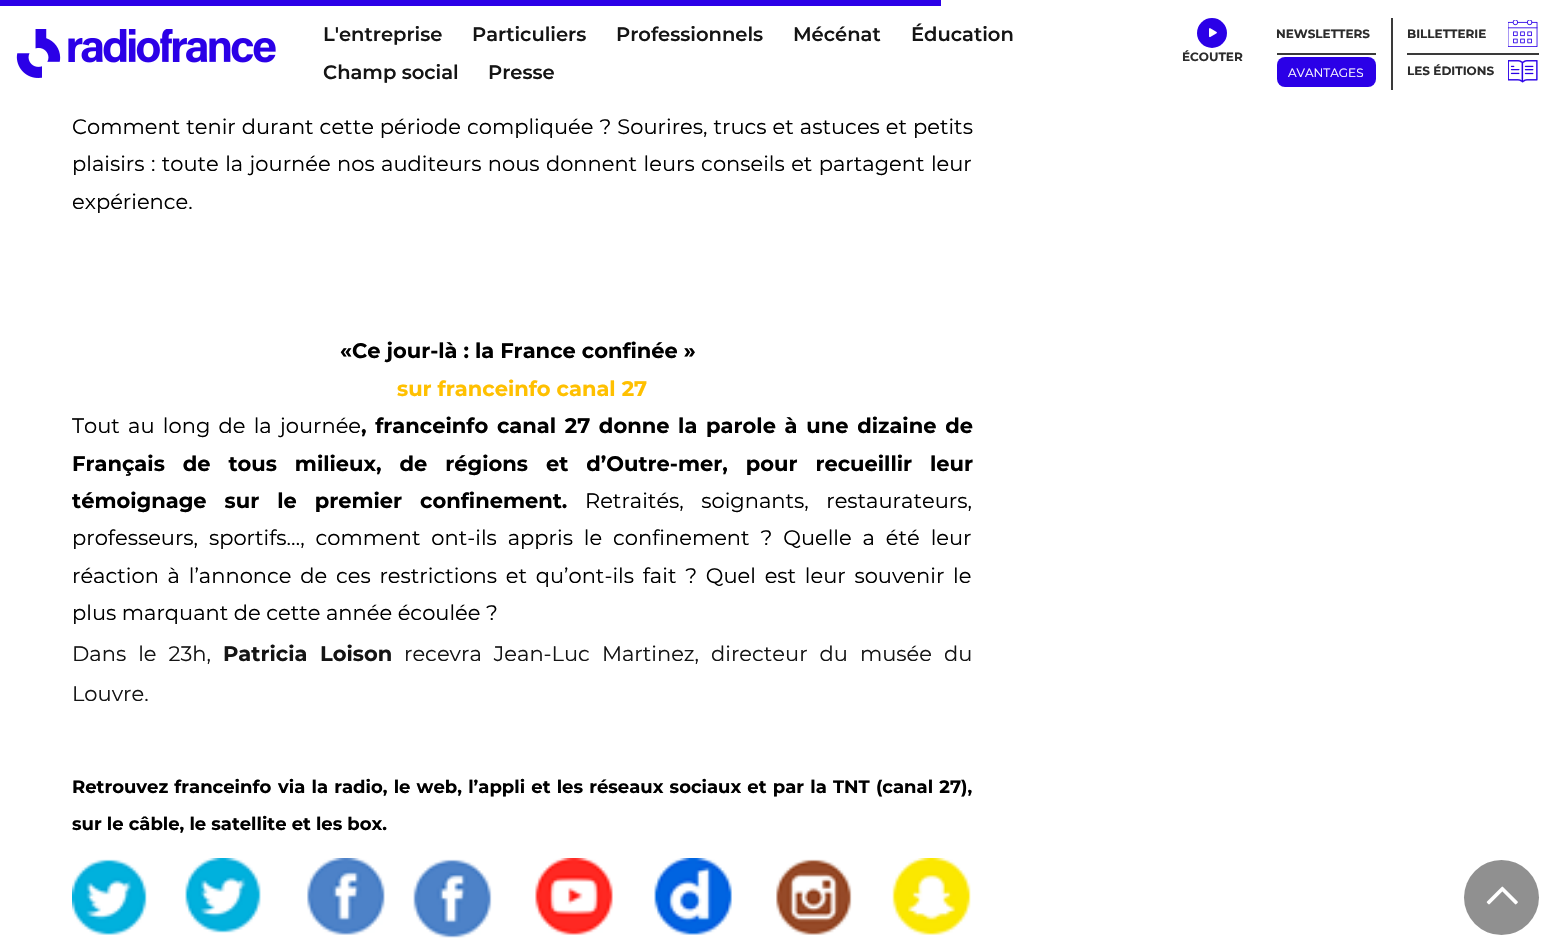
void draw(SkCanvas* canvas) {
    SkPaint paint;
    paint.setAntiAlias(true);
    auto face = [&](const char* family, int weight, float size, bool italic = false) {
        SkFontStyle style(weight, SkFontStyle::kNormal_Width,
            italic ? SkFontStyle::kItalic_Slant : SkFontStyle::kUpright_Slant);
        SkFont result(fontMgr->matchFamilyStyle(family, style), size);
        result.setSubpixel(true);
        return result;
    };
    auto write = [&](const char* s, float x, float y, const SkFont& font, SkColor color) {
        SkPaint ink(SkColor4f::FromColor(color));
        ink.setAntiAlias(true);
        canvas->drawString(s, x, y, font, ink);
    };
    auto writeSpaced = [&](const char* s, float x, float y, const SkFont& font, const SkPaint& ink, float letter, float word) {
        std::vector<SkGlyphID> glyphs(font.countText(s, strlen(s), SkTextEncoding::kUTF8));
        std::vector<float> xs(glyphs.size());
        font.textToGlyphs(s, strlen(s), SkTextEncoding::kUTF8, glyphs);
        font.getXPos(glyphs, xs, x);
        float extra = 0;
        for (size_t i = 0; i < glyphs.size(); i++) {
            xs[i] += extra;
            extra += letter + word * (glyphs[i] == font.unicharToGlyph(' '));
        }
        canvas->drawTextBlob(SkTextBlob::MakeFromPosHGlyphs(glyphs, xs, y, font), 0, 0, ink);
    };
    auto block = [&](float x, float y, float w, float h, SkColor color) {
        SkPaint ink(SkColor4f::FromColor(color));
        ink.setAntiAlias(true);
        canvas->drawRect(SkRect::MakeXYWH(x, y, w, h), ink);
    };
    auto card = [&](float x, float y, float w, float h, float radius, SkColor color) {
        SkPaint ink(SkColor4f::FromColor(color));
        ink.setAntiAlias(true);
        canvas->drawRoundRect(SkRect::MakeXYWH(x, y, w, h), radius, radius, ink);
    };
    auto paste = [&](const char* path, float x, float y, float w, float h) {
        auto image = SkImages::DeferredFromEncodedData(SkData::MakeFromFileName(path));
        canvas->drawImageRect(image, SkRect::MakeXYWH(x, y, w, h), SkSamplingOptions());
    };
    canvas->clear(SK_ColorWHITE);
    block(0, 0, 941, 6, SkColorSetRGB(43, 0, 231));
    paste("pic1.png", 16, 29, 260, 49);
    auto kFont1 = face("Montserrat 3", 100, 19.5f);
    write("L'entreprise", 323, 41, kFont1, SkColorSetRGB(21, 21, 21));
    write("Particuliers", 472, 41, kFont1, SkColorSetRGB(21, 21, 21));
    write("Professionnels", 616, 41, kFont1, SkColorSetRGB(21, 21, 21));
    write("Mécénat", 793, 41, kFont1, SkColorSetRGB(21, 21, 21));
    write("Éducation", 911, 41, kFont1, SkColorSetRGB(21, 21, 21));
    write("Champ social", 323, 79, kFont1, SkColorSetRGB(21, 21, 21));
    write("Presse", 488, 79, kFont1, SkColorSetRGB(21, 21, 21));
    paint.setColor(SkColorSetRGB(43, 0, 231));
    canvas->drawCircle(1212, 33, 15, paint);
    paste("pic2.png", 1209, 28, 8, 10);
    auto kFont2 = face("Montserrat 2", 100, 12);
    write("ÉCOUTER", 1182, 61, kFont2, SkColorSetRGB(44, 44, 44));
    block(1277, 53, 99, 2, SkColorSetRGB(58, 58, 58));
    write("NEWSLETTERS", 1276, 38, kFont2, SkColorSetRGB(44, 44, 44));
    card(1277, 57, 99, 30, 8, SkColorSetRGB(43, 0, 231));
    auto kFont3 = face("Montserrat", 100, 12);
    write("AVANTAGES", 1288, 77, kFont3, SK_ColorWHITE);
    block(1391, 18, 2, 72, SkColorSetRGB(58, 58, 58));
    paste("pic3.png", 1508, 20, 30, 27);
    block(1407, 53, 132, 2, SkColorSetRGB(58, 58, 58));
    write("BILLETTERIE", 1407, 38, kFont2, SkColorSetRGB(44, 44, 44));
    paste("pic4.png", 1508, 60, 30, 23);
    write("LES ÉDITIONS", 1407, 75, kFont2, SkColorSetRGB(44, 44, 44));
    auto kFont4 = face("Montserrat", 100, 21);
    paint.setColor(SK_ColorBLACK);
    writeSpaced("Comment tenir durant cette période compliquée ? Sourires, trucs et astuces et petits", 72, 134, kFont4, paint, 0, 0.5f);
    writeSpaced("plaisirs : toute la journée nos auditeurs nous donnent leurs conseils et partagent leur", 72, 171, kFont4, paint, 0, 0.9f);
    write("expérience.", 72, 209, kFont4, SK_ColorBLACK);
    auto kFont5 = face("Montserrat 2", 100, 21);
    write("« Ce jour-là : la France confinée »", 340, 358, kFont5, SK_ColorBLACK);
    write("sur franceinfo canal 27", 397, 396, kFont5, SkColorSetRGB(255, 192, 0));
    writeSpaced("Tout au long de la journée", 72, 433, kFont4, paint, 0, 2.75f);
    writeSpaced(", franceinfo canal 27 donne la parole à une dizaine de", 361, 433, kFont5, paint, 0, 2.75f);
    writeSpaced("Français de tous milieux, de régions et d’Outre-mer, pour recueillir leur", 72, 471, kFont5, paint, 0, 12);
    writeSpaced("témoignage sur le premier confinement.", 72, 508, kFont5, paint, 0, 12);
    writeSpaced("Retraités, soignants, restaurateurs,", 585, 508, kFont4, paint, 0, 12);
    writeSpaced("professeurs, sportifs…, comment ont-ils appris le confinement ? Quelle a été leur", 72, 545, kFont4, paint, 0, 5.4f);
    writeSpaced("réaction à l’annonce de ces restrictions et qu’ont-ils fait ? Quel est leur souvenir le", 72, 583, kFont4, paint, 0, 3.25f);
    write("plus marquant de cette année écoulée ?", 72, 620, kFont4, SK_ColorBLACK);
    paint.setColor(SkColorSetRGB(21, 21, 21));
    writeSpaced("Dans le 23h,", 72, 661, kFont4, paint, 0, 6.5f);
    writeSpaced("Patricia Loison", 223, 661, kFont5, paint, 0, 6.5f);
    writeSpaced("recevra Jean-Luc Martinez, directeur du musée du", 404, 661, kFont4, paint, 0, 6.5f);
    write("Louvre.", 72, 701, kFont4, SkColorSetRGB(21, 21, 21));
    auto kFont6 = face("Montserrat 2", 100, 18);
    paint.setColor(SK_ColorBLACK);
    writeSpaced("Retrouvez franceinfo", 72, 793, kFont6, paint, 0, 1);
    writeSpaced("via la radio, le web, l’appli et les réseaux sociaux et par la TNT (canal 27),", 278, 793, kFont6, paint, 0, 1.1f);
    write("sur le câble, le satellite et les box.", 72, 830, kFont6, SK_ColorBLACK);
    paste("pic5.png", 72, 858, 899, 80);
    paint.setColor(SkColorSetRGB(144, 144, 144));
    canvas->drawCircle(1501.5f, 897.5f, 37.5f, paint);
    paste("pic6.png", 1486, 886, 32, 19);
}
